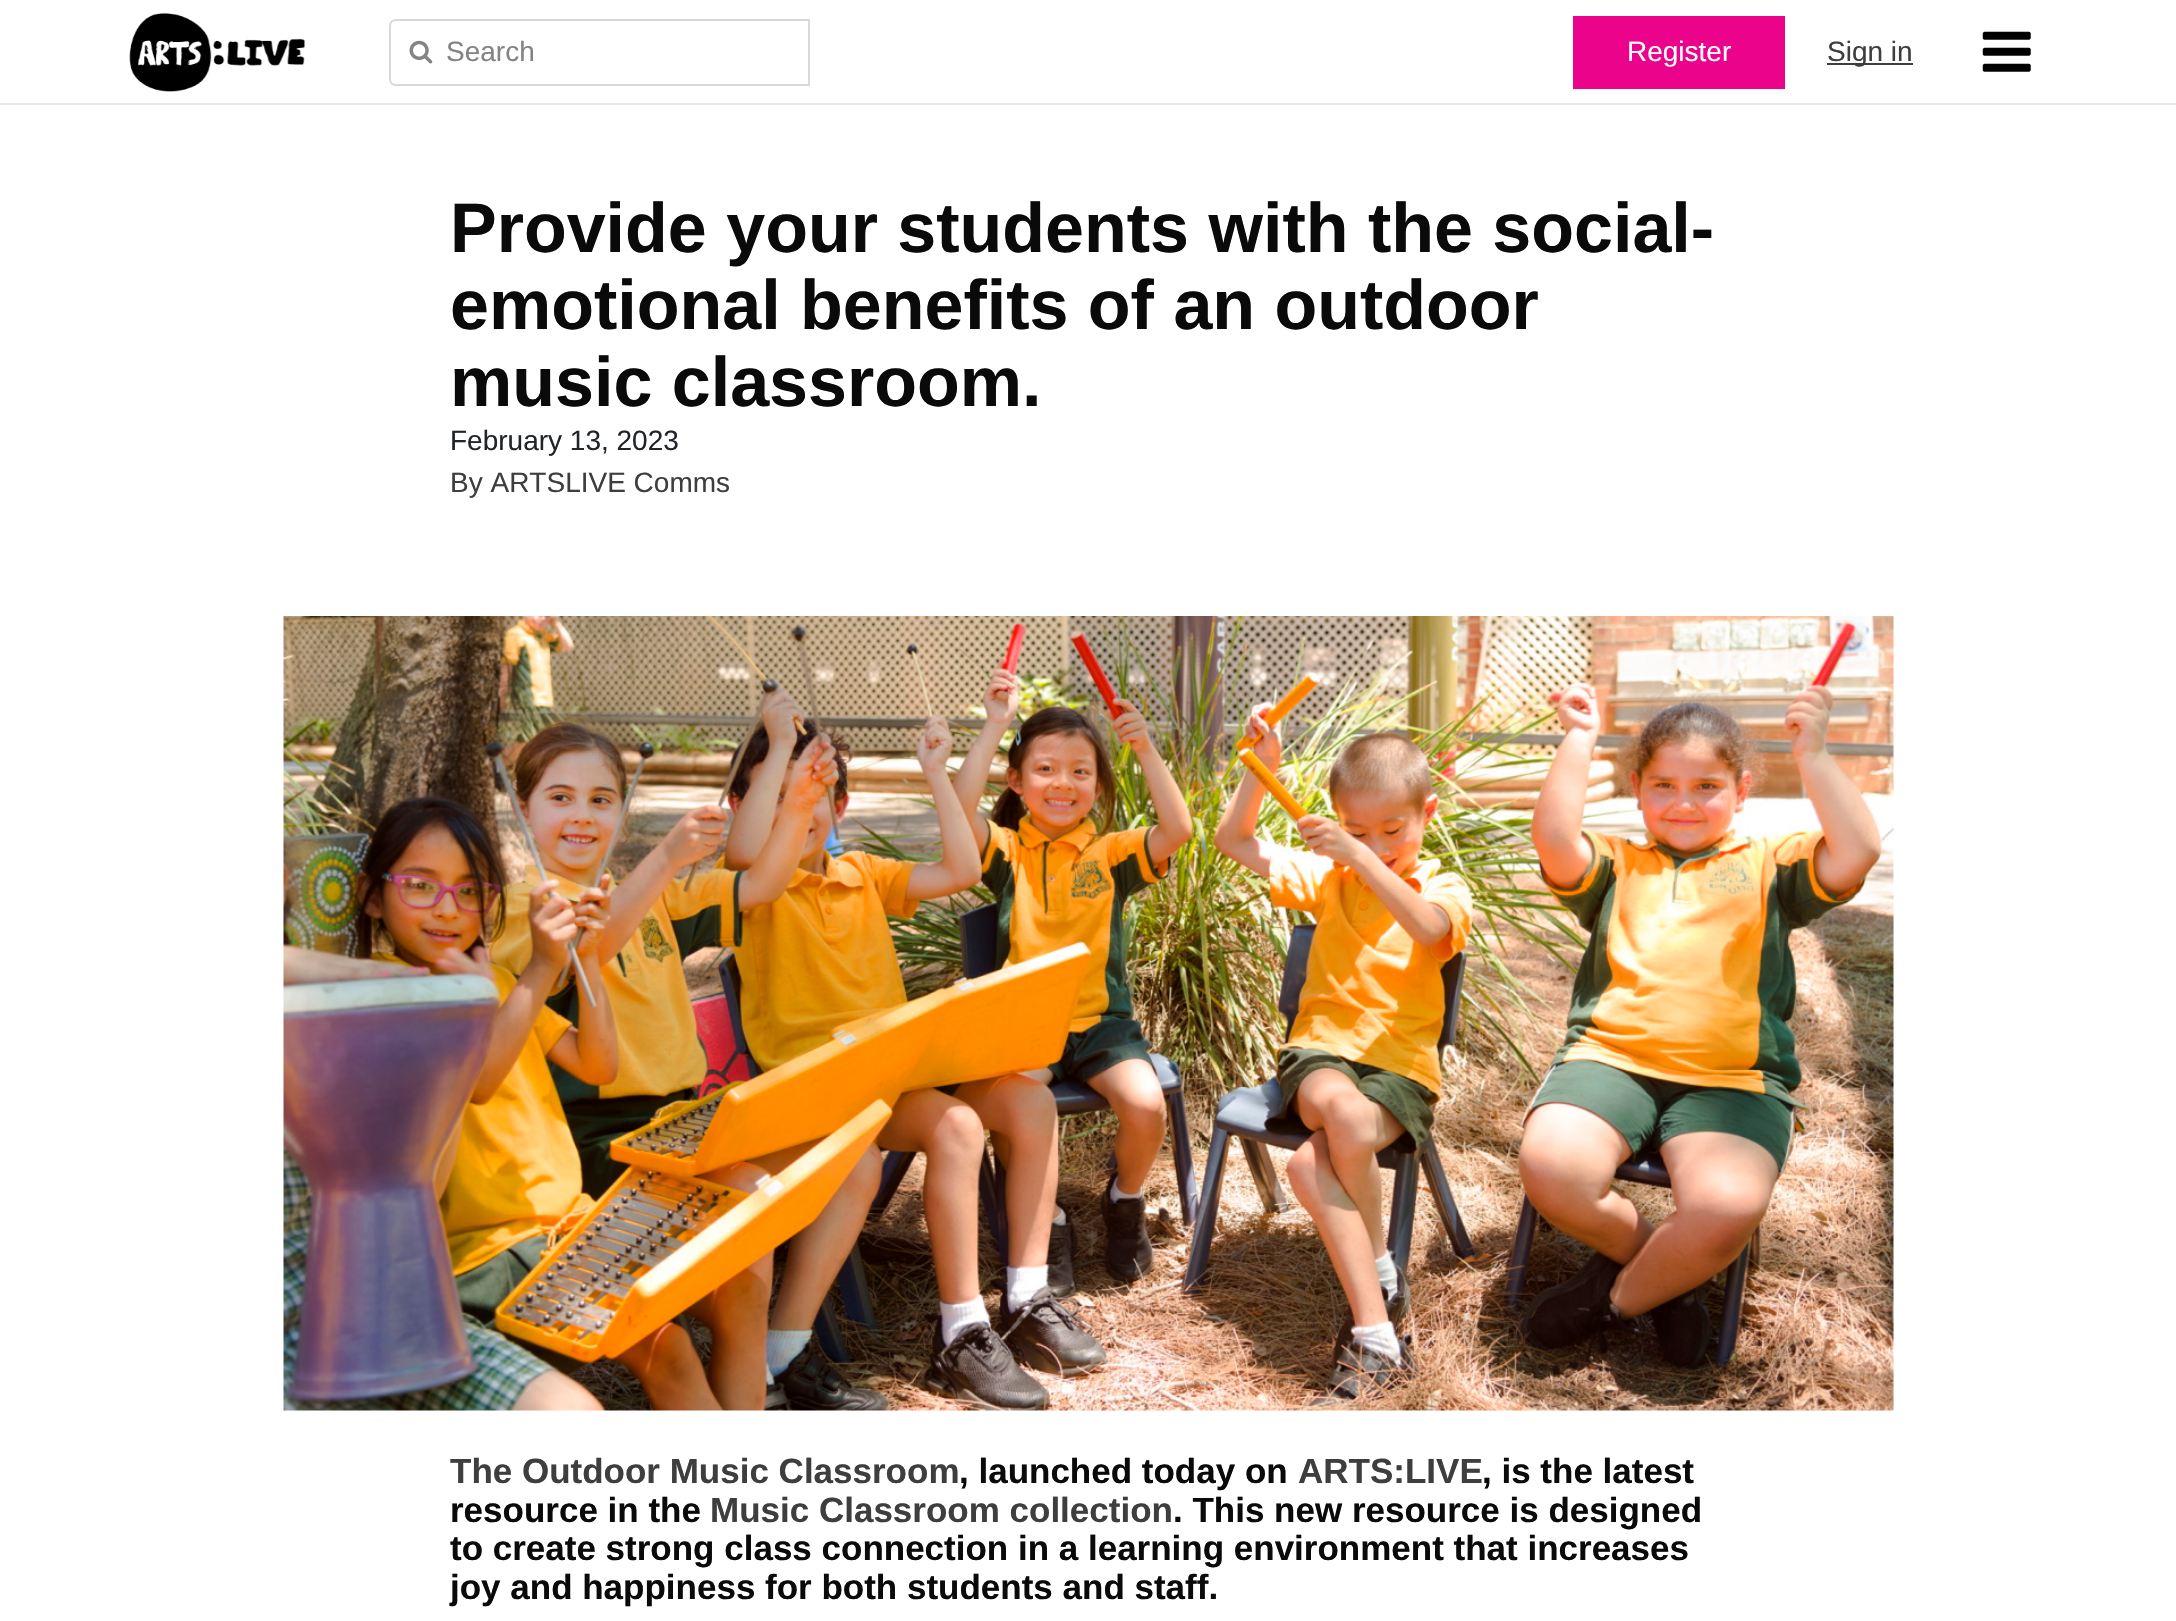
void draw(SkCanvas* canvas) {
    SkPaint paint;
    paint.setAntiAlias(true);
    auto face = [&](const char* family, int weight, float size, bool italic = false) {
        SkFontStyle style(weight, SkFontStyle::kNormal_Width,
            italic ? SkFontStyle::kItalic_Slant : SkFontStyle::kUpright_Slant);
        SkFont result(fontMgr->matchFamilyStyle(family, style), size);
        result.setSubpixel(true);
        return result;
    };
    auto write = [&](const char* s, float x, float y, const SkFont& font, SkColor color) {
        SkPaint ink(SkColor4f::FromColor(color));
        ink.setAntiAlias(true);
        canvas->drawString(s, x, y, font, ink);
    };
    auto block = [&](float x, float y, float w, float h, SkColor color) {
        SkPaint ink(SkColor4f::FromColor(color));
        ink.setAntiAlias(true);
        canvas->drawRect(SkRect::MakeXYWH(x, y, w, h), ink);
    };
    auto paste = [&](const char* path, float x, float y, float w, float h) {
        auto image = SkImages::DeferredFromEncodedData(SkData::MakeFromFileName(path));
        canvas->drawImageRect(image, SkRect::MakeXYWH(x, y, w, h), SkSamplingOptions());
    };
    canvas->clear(SK_ColorWHITE);
    block(0, 103, 2176, 2, SkColorSetRGB(230, 230, 230));
    paste("pic1.png", 129, 13, 176, 79);
    paint.setStyle(SkPaint::kStroke_Style);
    paint.setStrokeWidth(2);
    paint.setColor(SkColorSetRGB(217, 217, 217));
    canvas->drawPath(SkPathBuilder().moveTo(396, 20).lineTo(809, 20).lineTo(809, 85).lineTo(396, 85).cubicTo(392.5f, 85, 390, 82.5f, 390, 79).lineTo(390, 26).cubicTo(390, 22.5f, 392.5f, 20, 396, 20).close().detach(), paint);
    paste("pic2.png", 409, 40, 24, 24);
    auto kFont1 = face("Liberation Sans", 400, 28);
    write("Search", 446, 61, kFont1, SkColorSetRGB(131, 131, 131));
    block(1573, 16, 212, 73, SkColorSetRGB(236, 3, 140));
    write("Register", 1627, 61, kFont1, SK_ColorWHITE);
    block(1827, 63, 86, 2, SkColorSetRGB(62, 62, 62));
    write("Sign in", 1827, 61, kFont1, SkColorSetRGB(62, 62, 62));
    paste("pic3.png", 1982, 31, 49, 41);
    auto kFont2 = face("Liberation Sans", 700, 70);
    write("Provide your students with the social-", 450, 252, kFont2, SkColorSetRGB(10, 10, 10));
    write("emotional benefits of an outdoor", 450, 329, kFont2, SkColorSetRGB(10, 10, 10));
    write("music classroom.", 450, 406, kFont2, SkColorSetRGB(10, 10, 10));
    write("February 13, 2023", 450, 450, kFont1, SkColorSetRGB(33, 37, 41));
    write("By ARTSLIVE Comms", 450, 492, kFont1, SkColorSetRGB(62, 62, 62));
    paste("pic4.png", 283, 616, 1611, 795);
    auto kFont3 = face("Liberation Sans", 700, 35);
    write("The Outdoor Music Classroom", 450, 1483, kFont3, SkColorSetRGB(62, 62, 62));
    write(", launched today on", 959, 1483, kFont3, SkColorSetRGB(10, 10, 10));
    write("ARTS:LIVE", 1298, 1483, kFont3, SkColorSetRGB(62, 62, 62));
    write(", is the latest", 1482, 1483, kFont3, SkColorSetRGB(10, 10, 10));
    write("resource in the", 450, 1522, kFont3, SkColorSetRGB(10, 10, 10));
    write("Music Classroom collection", 710, 1522, kFont3, SkColorSetRGB(62, 62, 62));
    write(". This new resource is designed", 1173, 1522, kFont3, SkColorSetRGB(10, 10, 10));
    write("to create strong class connection in a learning environment that increases", 450, 1560, kFont3, SkColorSetRGB(10, 10, 10));
    write("joy and happiness for both students and staff.", 450, 1599, kFont3, SkColorSetRGB(10, 10, 10));
}
